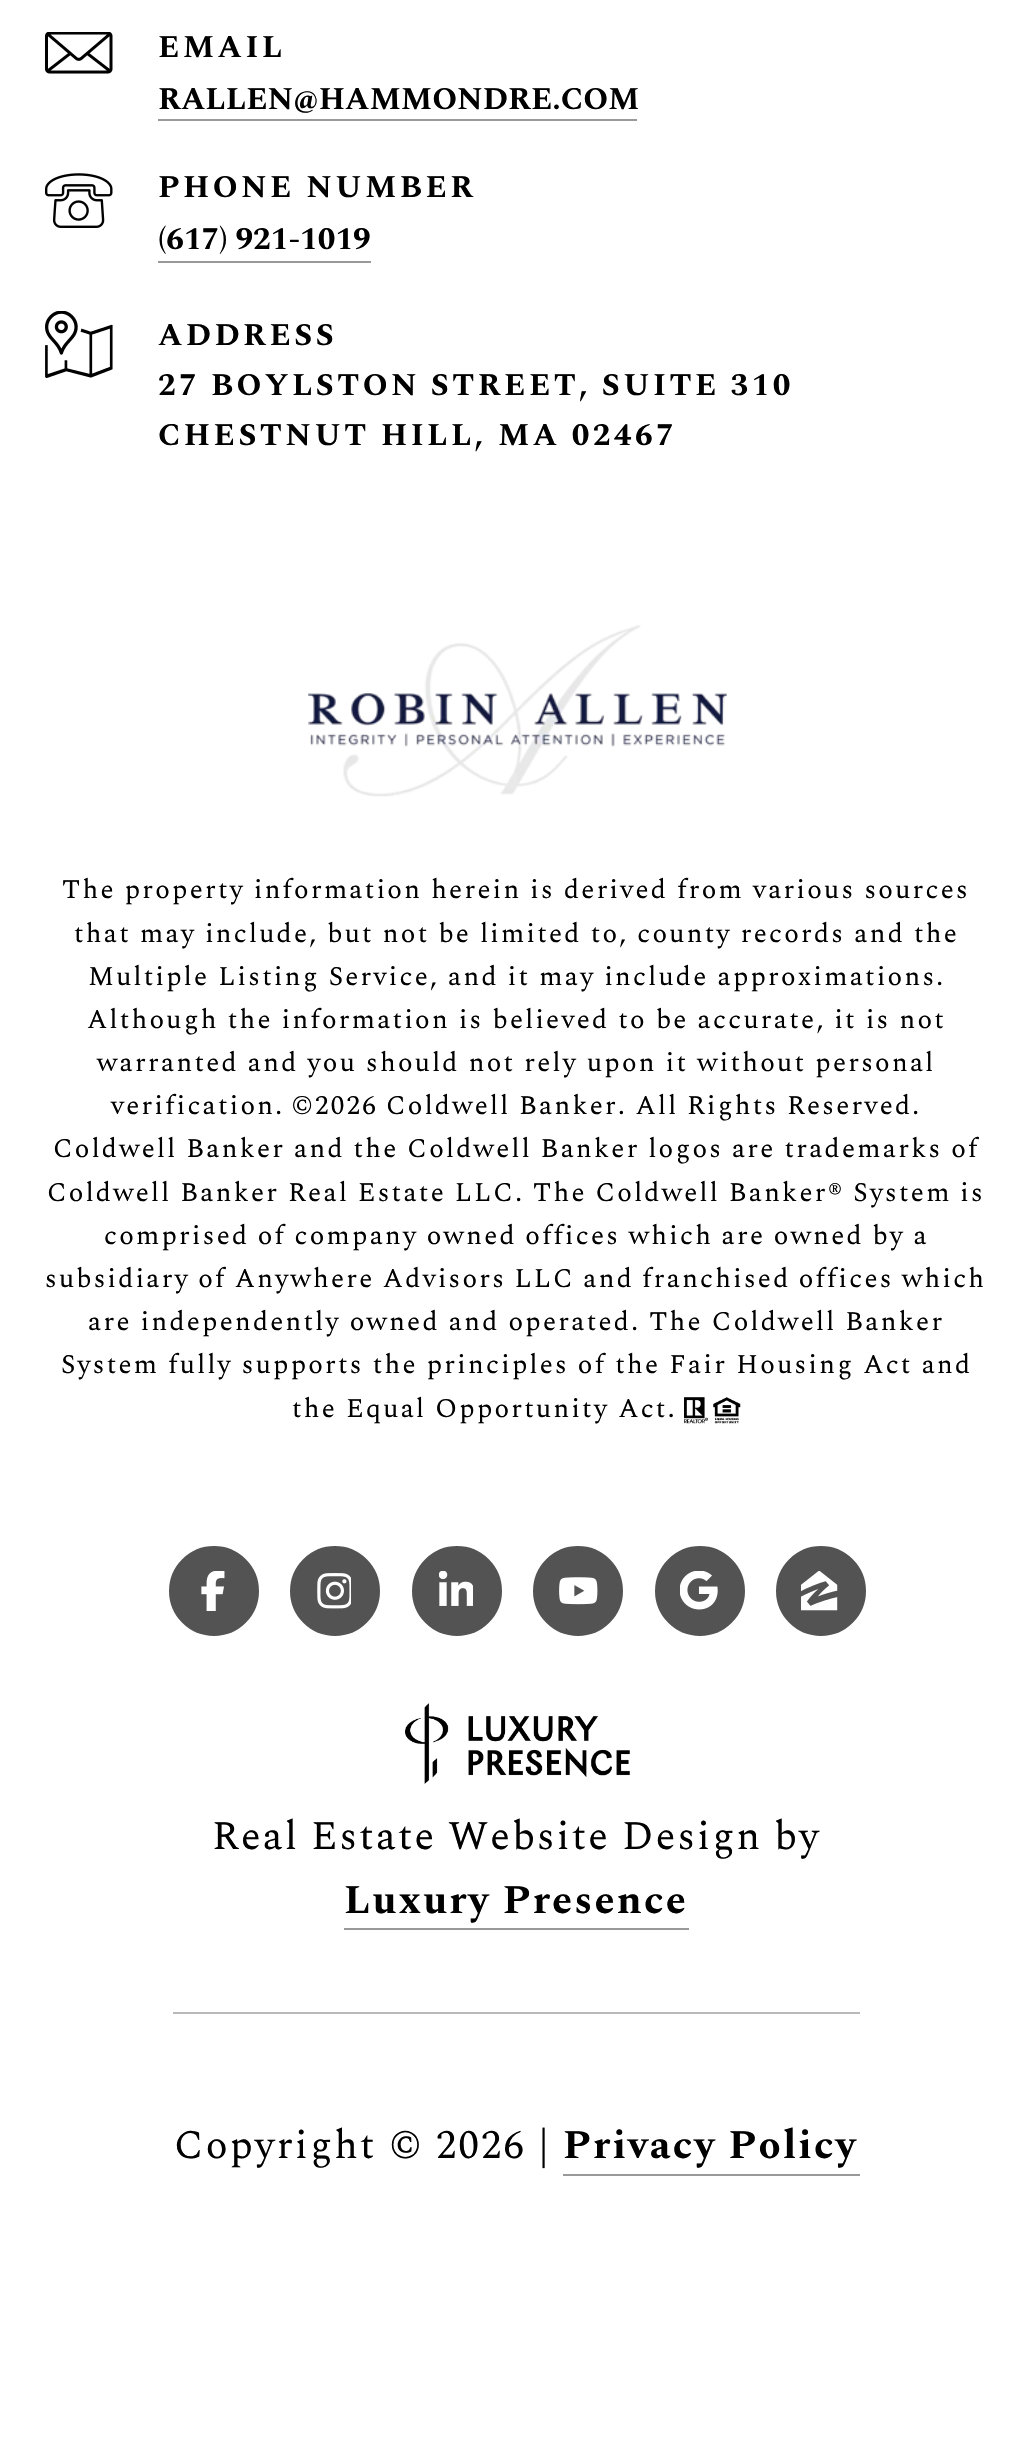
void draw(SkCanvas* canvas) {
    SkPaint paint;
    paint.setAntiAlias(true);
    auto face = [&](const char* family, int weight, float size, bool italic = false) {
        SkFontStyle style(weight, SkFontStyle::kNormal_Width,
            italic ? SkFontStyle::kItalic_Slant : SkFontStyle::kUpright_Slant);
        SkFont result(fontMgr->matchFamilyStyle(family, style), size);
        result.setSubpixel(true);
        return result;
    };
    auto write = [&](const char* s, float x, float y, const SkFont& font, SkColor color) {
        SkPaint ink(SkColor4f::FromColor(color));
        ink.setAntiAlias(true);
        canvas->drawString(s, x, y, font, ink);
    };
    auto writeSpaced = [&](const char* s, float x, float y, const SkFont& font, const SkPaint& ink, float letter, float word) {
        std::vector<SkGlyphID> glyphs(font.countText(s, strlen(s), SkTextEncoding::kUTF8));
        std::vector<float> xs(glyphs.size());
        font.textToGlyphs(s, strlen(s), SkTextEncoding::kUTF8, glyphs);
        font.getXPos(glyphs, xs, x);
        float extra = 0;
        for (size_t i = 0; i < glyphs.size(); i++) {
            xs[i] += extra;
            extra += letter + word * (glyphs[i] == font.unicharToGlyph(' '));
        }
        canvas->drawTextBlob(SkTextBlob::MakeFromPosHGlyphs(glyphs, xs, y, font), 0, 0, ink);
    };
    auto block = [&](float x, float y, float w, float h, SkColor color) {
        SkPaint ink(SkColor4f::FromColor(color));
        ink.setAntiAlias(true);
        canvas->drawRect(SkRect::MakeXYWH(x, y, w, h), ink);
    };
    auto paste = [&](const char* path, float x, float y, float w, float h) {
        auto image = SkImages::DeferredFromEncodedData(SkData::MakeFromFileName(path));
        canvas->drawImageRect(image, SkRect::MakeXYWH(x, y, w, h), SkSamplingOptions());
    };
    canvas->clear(SK_ColorWHITE);
    paste("pic1.png", 45, 32, 68, 42);
    auto kFont1 = face("Spectral", 700, 31.5f);
    paint.setColor(SK_ColorBLACK);
    writeSpaced("EMAIL", 158, 57, kFont1, paint, 3.4f, 0);
    write("RALLEN@HAMMONDRE.COM", 158, 109, kFont1, SK_ColorBLACK);
    block(158, 119, 479, 2, SkColorSetRGB(153, 153, 153));
    paste("pic2.png", 45, 173, 68, 55);
    writeSpaced("PHONE NUMBER", 158, 197, kFont1, paint, 3.4f, 0);
    write("(617) 921-1019", 158, 249, kFont1, SK_ColorBLACK);
    block(158, 261, 213, 2, SkColorSetRGB(153, 153, 153));
    paste("pic3.png", 45, 311, 68, 67);
    writeSpaced("ADDRESS", 158, 345, kFont1, paint, 3.4f, 0);
    writeSpaced("27 BOYLSTON STREET, SUITE 310", 158, 395, kFont1, paint, 3.4f, -0.5f);
    writeSpaced("CHESTNUT HILL, MA 02467", 158, 445, kFont1, paint, 3.4f, 0);
    paste("pic4.png", 308, 625, 419, 172);
    auto kFont2 = face("Spectral", 400, 27);
    writeSpaced("The property information herein is derived from various sources", 62, 898, kFont2, paint, 2.25f, 0);
    writeSpaced("that may include, but not be limited to, county records and the", 74, 942, kFont2, paint, 2.25f, 0);
    writeSpaced("Multiple Listing Service, and it may include approximations.", 88, 985, kFont2, paint, 2.25f, 0);
    writeSpaced("Although the information is believed to be accurate, it is not", 87, 1028, kFont2, paint, 2.25f, 0);
    writeSpaced("warranted and you should not rely upon it without personal", 97, 1071, kFont2, paint, 2.25f, 0);
    writeSpaced("verification. ©", 111, 1114, kFont2, paint, 2.25f, -2);
    writeSpaced("2026", 315, 1114, kFont2, paint, 2.25f, 0);
    writeSpaced("Coldwell Banker. All Rights Reserved.", 386, 1114, kFont2, paint, 2.25f, -0.5f);
    writeSpaced("Coldwell Banker and the Coldwell Banker logos are trademarks of", 53, 1157, kFont2, paint, 2.25f, -0.25f);
    writeSpaced("Coldwell Banker Real Estate LLC. The Coldwell Banker® System is", 47, 1201, kFont2, paint, 2.25f, -0.25f);
    writeSpaced("comprised of company owned offices which are owned by a", 104, 1244, kFont2, paint, 2.25f, -0.5f);
    writeSpaced("subsidiary of Anywhere Advisors LLC and franchised offices which", 45, 1287, kFont2, paint, 2.25f, -0.75f);
    writeSpaced("are independently owned and operated. The Coldwell Banker", 88, 1330, kFont2, paint, 2.25f, 0);
    writeSpaced("System fully supports the principles of the Fair Housing Act and", 61, 1373, kFont2, paint, 2.25f, 0);
    writeSpaced("the Equal Opportunity Act.", 292, 1417, kFont2, paint, 2.25f, 0);
    paste("pic5.png", 684, 1397, 57, 27);
    paint.setColor(SkColorSetRGB(83, 83, 83));
    canvas->drawCircle(214, 1591, 44, paint);
    paint.setStyle(SkPaint::kStroke_Style);
    paint.setStrokeWidth(2);
    canvas->drawCircle(214, 1591, 44, paint);
    paste("pic6.png", 201, 1571, 24, 40);
    paint.setStyle(SkPaint::kFill_Style);
    canvas->drawCircle(335, 1591, 44, paint);
    paint.setStyle(SkPaint::kStroke_Style);
    canvas->drawCircle(335, 1591, 44, paint);
    paste("pic7.png", 317, 1573, 34, 36);
    paint.setStyle(SkPaint::kFill_Style);
    canvas->drawCircle(457, 1591, 44, paint);
    paint.setStyle(SkPaint::kStroke_Style);
    canvas->drawCircle(457, 1591, 44, paint);
    paste("pic8.png", 439, 1571, 34, 35);
    paint.setStyle(SkPaint::kFill_Style);
    canvas->drawCircle(578, 1591, 44, paint);
    paint.setStyle(SkPaint::kStroke_Style);
    canvas->drawCircle(578, 1591, 44, paint);
    paste("pic9.png", 559, 1577, 39, 28);
    paint.setStyle(SkPaint::kFill_Style);
    canvas->drawCircle(700, 1591, 44, paint);
    paint.setStyle(SkPaint::kStroke_Style);
    canvas->drawCircle(700, 1591, 44, paint);
    paste("pic10.png", 680, 1571, 38, 39);
    paint.setStyle(SkPaint::kFill_Style);
    canvas->drawCircle(821, 1591, 44, paint);
    paint.setStyle(SkPaint::kStroke_Style);
    canvas->drawCircle(821, 1591, 44, paint);
    paste("pic11.png", 801, 1571, 37, 40);
    paste("pic12.png", 405, 1703, 225, 81);
    auto kFont3 = face("Spectral", 400, 40.5f);
    paint.setStyle(SkPaint::kFill_Style);
    paint.setColor(SK_ColorBLACK);
    writeSpaced("Real Estate Website Design by", 212, 1849, kFont3, paint, 2.25f, -0.5f);
    auto kFont4 = face("Spectral", 700, 40.5f);
    writeSpaced("Luxury Presence", 344, 1913, kFont4, paint, 2.25f, 0);
    block(344, 1928, 345, 2, SkColorSetRGB(153, 153, 153));
    block(173, 2012, 687, 2, SkColorSetRGB(185, 185, 185));
    writeSpaced("Copyright ©", 174, 2158, kFont3, paint, 2.25f, 0);
    writeSpaced("2026 |", 436, 2158, kFont3, paint, 2.25f, 0);
    writeSpaced("Privacy Policy", 563, 2158, kFont4, paint, 2.25f, 0);
    block(563, 2174, 297, 2, SkColorSetRGB(153, 153, 153));
}
